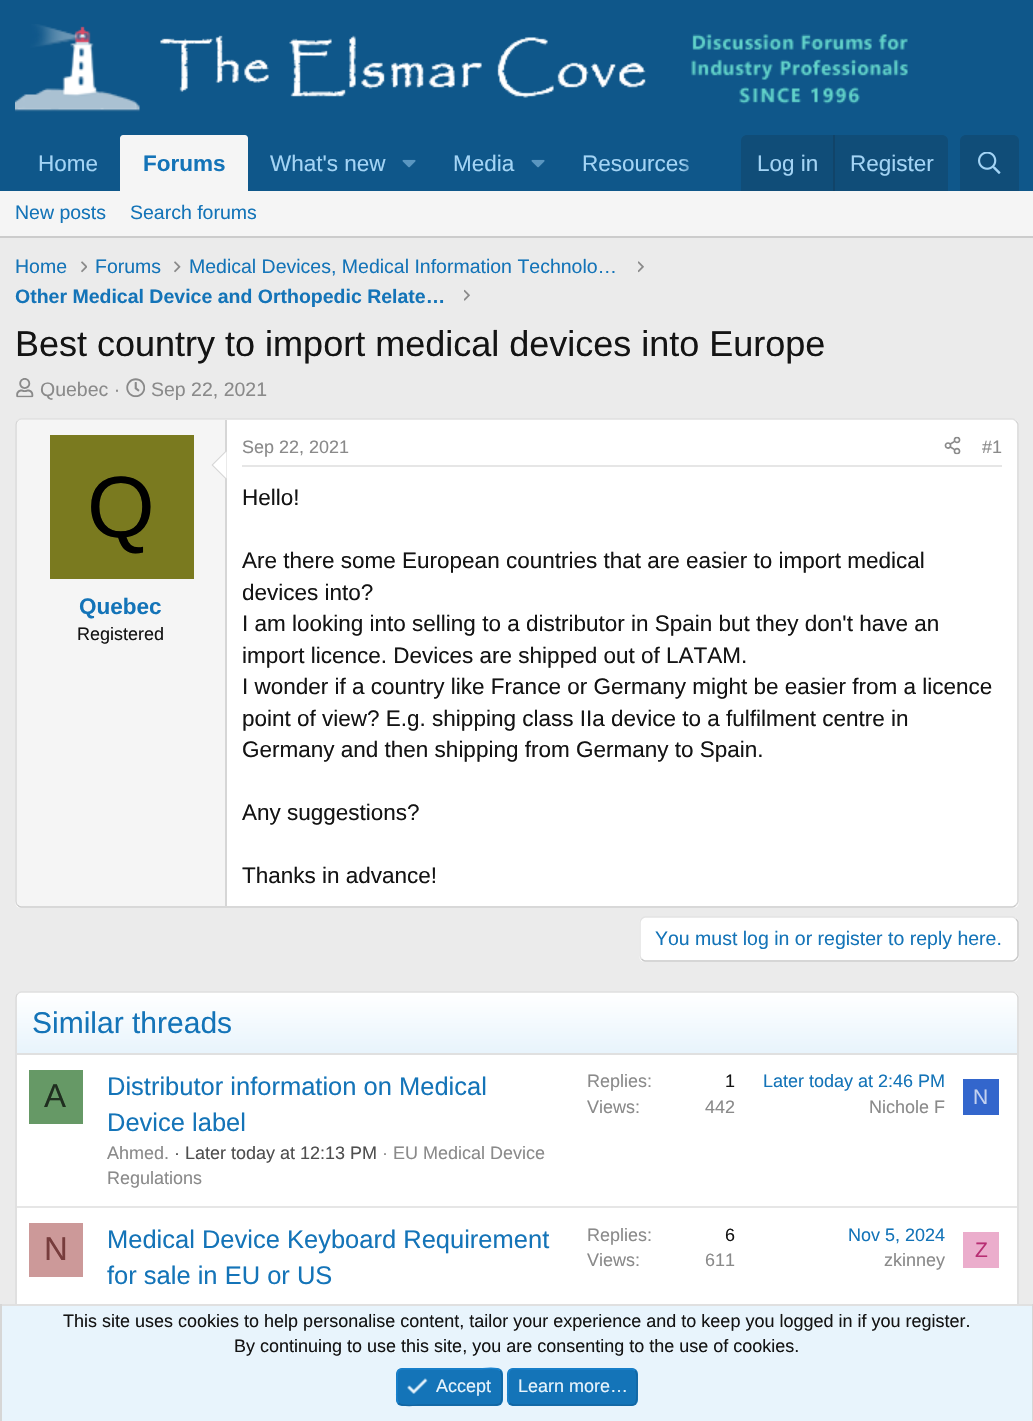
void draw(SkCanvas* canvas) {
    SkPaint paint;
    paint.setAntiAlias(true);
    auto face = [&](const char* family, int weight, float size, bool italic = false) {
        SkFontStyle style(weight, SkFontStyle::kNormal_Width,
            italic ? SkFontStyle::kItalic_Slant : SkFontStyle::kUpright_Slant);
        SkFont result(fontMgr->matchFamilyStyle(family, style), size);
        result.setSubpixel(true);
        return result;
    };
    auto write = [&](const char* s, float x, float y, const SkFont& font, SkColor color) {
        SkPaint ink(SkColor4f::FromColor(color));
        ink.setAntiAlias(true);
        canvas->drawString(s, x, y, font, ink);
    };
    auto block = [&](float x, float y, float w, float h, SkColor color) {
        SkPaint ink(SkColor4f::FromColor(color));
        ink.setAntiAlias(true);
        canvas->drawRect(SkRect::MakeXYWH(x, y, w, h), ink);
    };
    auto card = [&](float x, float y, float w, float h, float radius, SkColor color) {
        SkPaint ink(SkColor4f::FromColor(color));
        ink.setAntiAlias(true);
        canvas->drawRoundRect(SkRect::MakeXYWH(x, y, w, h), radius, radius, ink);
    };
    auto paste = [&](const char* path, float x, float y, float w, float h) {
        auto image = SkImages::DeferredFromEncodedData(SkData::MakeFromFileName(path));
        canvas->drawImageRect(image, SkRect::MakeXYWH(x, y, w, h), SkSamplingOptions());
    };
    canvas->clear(SkColorSetRGB(235, 235, 235));
    block(0, 0, 1033, 191, SkColorSetRGB(15, 87, 138));
    paste("pic1.png", 15, 24, 893, 88);
    auto kFont1 = face("Liberation Sans", 400, 22.5f);
    write("Home", 38, 171, kFont1, SkColorSetRGB(163, 212, 245));
    paint.setColor(SkColorSetRGB(245, 245, 245));
    canvas->drawPath(SkPathBuilder().moveTo(123, 135).lineTo(245, 135).cubicTo(246.5f, 135, 248, 136.5f, 248, 138).lineTo(248, 191).lineTo(120, 191).lineTo(120, 138).cubicTo(120, 136.5f, 121.5f, 135, 123, 135).close().detach(), paint);
    auto kFont2 = face("Liberation Sans", 700, 22.5f);
    write("Forums", 143, 171, kFont2, SkColorSetRGB(20, 116, 184));
    write("What's new", 270, 171, kFont1, SkColorSetRGB(163, 212, 245));
    paste("pic2.png", 402, 159, 14, 9);
    write("Media", 453, 171, kFont1, SkColorSetRGB(163, 212, 245));
    paste("pic2.png", 531, 159, 14, 9);
    write("Resources", 582, 171, kFont1, SkColorSetRGB(163, 212, 245));
    {
        const SkColor colors[] = {SkColorSetARGB(0, 15, 87, 138), SkColorSetRGB(15, 87, 138)};
        const float stops[] = {0, 0.33f};
        const SkPoint ends[] = {{681, 163}, {741, 163}};
        paint.setShader(SkGradientShader::MakeLinear(ends, colors, stops, 2, SkTileMode::kClamp));
        paint.setAlpha(255);
    }
    canvas->drawRect(SkRect::MakeXYWH(681, 159, 8, 13), paint);
    paint.setShader(nullptr);
    paint.setColor(SkColorSetRGB(16, 77, 120));
    canvas->drawPath(SkPathBuilder().moveTo(747, 135).lineTo(942, 135).cubicTo(945.5f, 135, 948, 137.5f, 948, 141).lineTo(948, 191).lineTo(741, 191).lineTo(741, 141).cubicTo(741, 137.5f, 743.5f, 135, 747, 135).close().detach(), paint);
    write("Log in", 757, 171, kFont1, SkColorSetRGB(163, 212, 245));
    block(833, 135, 2, 56, SkColorSetRGB(17, 68, 105));
    write("Register", 850, 171, kFont1, SkColorSetRGB(163, 212, 245));
    canvas->drawPath(SkPathBuilder().moveTo(966, 135).lineTo(1013, 135).cubicTo(1016.5f, 135, 1019, 137.5f, 1019, 141).lineTo(1019, 191).lineTo(960, 191).lineTo(960, 141).cubicTo(960, 137.5f, 962.5f, 135, 966, 135).close().detach(), paint);
    paste("pic3.png", 978, 152, 23, 22);
    block(0, 191, 1033, 45, SkColorSetRGB(245, 245, 245));
    block(0, 236, 1033, 2, SkColorSetRGB(204, 204, 204));
    auto kFont3 = face("Liberation Sans", 400, 19.5f);
    write("New posts", 15, 219, kFont3, SkColorSetRGB(20, 116, 184));
    write("Search forums", 130, 219, kFont3, SkColorSetRGB(20, 116, 184));
    write("Home", 15, 273, kFont3, SkColorSetRGB(20, 116, 184));
    paste("pic4.png", 81, 261, 6, 12);
    write("Forums", 95, 273, kFont3, SkColorSetRGB(20, 116, 184));
    paste("pic5.png", 174, 261, 7, 12);
    write("Medical Devices, Medical Information Technolo…", 189, 273, kFont3, SkColorSetRGB(20, 116, 184));
    paste("pic6.png", 638, 261, 6, 12);
    auto kFont4 = face("Liberation Sans", 700, 19.5f);
    write("Other Medical Device and Orthopedic Relate…", 15, 303, kFont4, SkColorSetRGB(20, 116, 184));
    paste("pic7.png", 464, 289, 6, 12);
    auto kFont5 = face("Liberation Sans", 400, 36);
    write("Best country to import medical devices into Europe", 15, 356, kFont5, SkColorSetRGB(20, 20, 20));
    paste("pic8.png", 16, 378, 18, 20);
    write("Quebec ·", 40, 396, kFont3, SkColorSetRGB(138, 138, 138));
    paste("pic9.png", 126, 378, 19, 20);
    write("Sep 22, 2021", 151, 396, kFont3, SkColorSetRGB(138, 138, 138));
    card(15, 419, 1004, 489, 6, SK_ColorWHITE);
    paint.setStyle(SkPaint::kStroke_Style);
    paint.setStrokeWidth(1.5f);
    paint.setColor(SkColorSetRGB(224, 224, 224));
    canvas->drawPath(SkPathBuilder().moveTo(17.5f, 421).cubicTo(18.5f, 420, 19.5f, 419, 21, 419).lineTo(1012.5f, 419).cubicTo(1014, 419, 1015, 420, 1016, 421).detach(), paint);
    paint.setColor(SkColorSetRGB(214, 214, 214));
    canvas->drawPath(SkPathBuilder().moveTo(1016, 421).cubicTo(1017, 422, 1018, 423, 1018, 424.5f).lineTo(1018, 901.5f).cubicTo(1018, 903, 1017, 904, 1016, 905).detach(), paint);
    paint.setColor(SkColorSetRGB(204, 204, 204));
    canvas->drawPath(SkPathBuilder().moveTo(1016, 905).cubicTo(1015, 906, 1014, 907, 1012.5f, 907).lineTo(21, 907).cubicTo(19.5f, 907, 18.5f, 906, 17.5f, 905).detach(), paint);
    paint.setColor(SkColorSetRGB(214, 214, 214));
    canvas->drawPath(SkPathBuilder().moveTo(17.5f, 905).cubicTo(16.5f, 904, 16, 903, 16, 901.5f).lineTo(16, 424.5f).cubicTo(16, 423, 16.5f, 422, 17.5f, 421).detach(), paint);
    paint.setStyle(SkPaint::kFill_Style);
    paint.setColor(SkColorSetRGB(245, 245, 245));
    canvas->drawPath(SkPathBuilder().moveTo(22, 420).lineTo(227, 420).lineTo(227, 906).lineTo(22, 906).cubicTo(19, 906, 17, 904, 17, 901).lineTo(17, 425).cubicTo(17, 422, 19, 420, 22, 420).close().detach(), paint);
    block(225, 420, 2, 486, SkColorSetRGB(214, 214, 214));
    paint.setColor(SkColorSetRGB(214, 214, 214));
    canvas->drawPath(SkPathBuilder().moveTo(226.5f, 450).lineTo(226.5f, 480).lineTo(211.5f, 465).close().detach(), paint);
    paint.setColor(SK_ColorWHITE);
    canvas->drawPath(SkPathBuilder().moveTo(226.5f, 451.5f).lineTo(226.5f, 478.5f).lineTo(213, 465).close().detach(), paint);
    block(50, 435, 144, 144, SkColorSetRGB(122, 122, 31));
    auto kFont6 = face("Liberation Sans", 400, 87);
    write("Q", 87, 537, kFont6, SK_ColorBLACK);
    write("Quebec", 79, 614, kFont2, SkColorSetRGB(20, 116, 184));
    auto kFont7 = face("Liberation Sans", 400, 18);
    write("Registered", 77, 640, kFont7, SkColorSetRGB(20, 20, 20));
    block(242, 465, 760, 2, SkColorSetRGB(230, 230, 230));
    write("Sep 22, 2021", 242, 453, kFont7, SkColorSetRGB(138, 138, 138));
    paste("pic10.png", 944, 436, 17, 19);
    write("#1", 982, 453, kFont7, SkColorSetRGB(138, 138, 138));
    write("Hello!", 242, 505, kFont1, SkColorSetRGB(20, 20, 20));
    write("Are there some European countries that are easier to import medical", 242, 568, kFont1, SkColorSetRGB(20, 20, 20));
    write("devices into?", 242, 600, kFont1, SkColorSetRGB(20, 20, 20));
    write("I am looking into selling to a distributor in Spain but they don't have an", 242, 631, kFont1, SkColorSetRGB(20, 20, 20));
    write("import licence. Devices are shipped out of LATAM.", 242, 663, kFont1, SkColorSetRGB(20, 20, 20));
    write("I wonder if a country like France or Germany might be easier from a licence", 242, 694, kFont1, SkColorSetRGB(20, 20, 20));
    write("point of view? E.g. shipping class IIa device to a fulfilment centre in", 242, 726, kFont1, SkColorSetRGB(20, 20, 20));
    write("Germany and then shipping from Germany to Spain.", 242, 757, kFont1, SkColorSetRGB(20, 20, 20));
    write("Any suggestions?", 242, 820, kFont1, SkColorSetRGB(20, 20, 20));
    write("Thanks in advance!", 242, 883, kFont1, SkColorSetRGB(20, 20, 20));
    card(639, 917, 380, 45, 6, SK_ColorWHITE);
    paint.setStyle(SkPaint::kStroke_Style);
    paint.setColor(SkColorSetRGB(201, 201, 201));
    canvas->drawPath(SkPathBuilder().moveTo(1016, 919).cubicTo(1017, 920, 1018, 921, 1018, 922.5f).lineTo(1018, 955.5f).cubicTo(1018, 957, 1017, 958, 1016, 959).cubicTo(1015, 960, 1014, 961, 1012.5f, 961).lineTo(645, 961).cubicTo(643.5f, 961, 642.5f, 960, 641.5f, 959).detach(), paint);
    paint.setColor(SkColorSetRGB(227, 227, 227));
    canvas->drawPath(SkPathBuilder().moveTo(641.5f, 959).cubicTo(640.5f, 958, 640, 957, 640, 955.5f).lineTo(640, 922.5f).cubicTo(640, 921, 640.5f, 920, 641.5f, 919).cubicTo(642.5f, 918, 643.5f, 917, 645, 917).lineTo(1012.5f, 917).cubicTo(1014, 917, 1015, 918, 1016, 919).detach(), paint);
    write("You must log in or register to reply here.", 655, 945, kFont3, SkColorSetRGB(20, 116, 184));
    card(15, 992, 1004, 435, 6, SK_ColorWHITE);
    paint.setColor(SkColorSetRGB(224, 224, 224));
    canvas->drawPath(SkPathBuilder().moveTo(17.5f, 994).cubicTo(18.5f, 993, 19.5f, 992, 21, 992).lineTo(1012.5f, 992).cubicTo(1014, 992, 1015, 993, 1016, 994).detach(), paint);
    paint.setColor(SkColorSetRGB(214, 214, 214));
    canvas->drawPath(SkPathBuilder().moveTo(1016, 994).cubicTo(1017, 995, 1018, 996, 1018, 997.5f).lineTo(1018, 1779).cubicTo(1018, 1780.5f, 1017, 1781.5f, 1016, 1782.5f).detach(), paint);
    canvas->drawPath(SkPathBuilder().moveTo(17.5f, 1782.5f).cubicTo(16.5f, 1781.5f, 16, 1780.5f, 16, 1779).lineTo(16, 997.5f).cubicTo(16, 996, 16.5f, 995, 17.5f, 994).detach(), paint);
    paint.setStyle(SkPaint::kFill_Style);
    {
        const SkColor colors[] = {SkColorSetRGB(232, 244, 252), SK_ColorWHITE};
        const float stops[] = {0, 1};
        const SkPoint ends[] = {{517, 1053}, {517, 993}};
        paint.setShader(SkGradientShader::MakeLinear(ends, colors, stops, 2, SkTileMode::kClamp));
        paint.setAlpha(255);
    }
    canvas->drawPath(SkPathBuilder().moveTo(22, 993).lineTo(1012, 993).cubicTo(1015, 993, 1017, 995, 1017, 998).lineTo(1017, 1053).lineTo(17, 1053).lineTo(17, 998).cubicTo(17, 995, 19, 993, 22, 993).close().detach(), paint);
    block(17, 1053, 1000, 2, SkColorSetRGB(224, 224, 224));
    auto kFont8 = face("Liberation Sans", 400, 30);
    write("Similar threads", 32, 1033, kFont8, SkColorSetRGB(20, 116, 184));
    block(29, 1070, 54, 54, SkColorSetRGB(102, 153, 102));
    auto kFont9 = face("Liberation Sans", 400, 33);
    write("A", 44, 1107, kFont9, SkColorSetRGB(31, 46, 31));
    auto kFont10 = face("Liberation Sans", 400, 25.5f);
    write("Distributor information on Medical", 107, 1095, kFont10, SkColorSetRGB(20, 116, 184));
    write("Device label", 107, 1131, kFont10, SkColorSetRGB(20, 116, 184));
    write("Ahmed.", 107, 1159, kFont7, SkColorSetRGB(138, 138, 138));
    write("· Later today at 12:13 PM", 174, 1159, kFont7, SkColorSetRGB(79, 79, 79));
    write("· EU Medical Device", 382, 1159, kFont7, SkColorSetRGB(138, 138, 138));
    write("Regulations", 107, 1184, kFont7, SkColorSetRGB(138, 138, 138));
    write("Replies:", 587, 1087, kFont7, SkColorSetRGB(138, 138, 138));
    write("1", 725, 1087, kFont7, SkColorSetRGB(20, 20, 20));
    write("Views:", 587, 1113, kFont7, SkColorSetRGB(138, 138, 138));
    write("442", 705, 1113, kFont7, SkColorSetRGB(138, 138, 138));
    write("Later today at 2:46 PM", 763, 1087, kFont7, SkColorSetRGB(20, 116, 184));
    write("Nichole F", 869, 1113, kFont7, SkColorSetRGB(138, 138, 138));
    block(963, 1079, 36, 36, SkColorSetRGB(51, 102, 204));
    auto kFont11 = face("Liberation Sans", 400, 21);
    write("N", 973, 1104, kFont11, SkColorSetRGB(194, 209, 240));
    block(17, 1206, 1000, 2, SkColorSetRGB(230, 230, 230));
    block(29, 1223, 54, 54, SkColorSetRGB(204, 153, 153));
    write("N", 44, 1260, kFont9, SkColorSetRGB(119, 60, 60));
    write("Medical Device Keyboard Requirement", 107, 1248, kFont10, SkColorSetRGB(20, 116, 184));
    write("for sale in EU or US", 107, 1284, kFont10, SkColorSetRGB(20, 116, 184));
    write("Replies:", 587, 1241, kFont7, SkColorSetRGB(138, 138, 138));
    write("6", 725, 1241, kFont7, SkColorSetRGB(20, 20, 20));
    write("Views:", 587, 1266, kFont7, SkColorSetRGB(138, 138, 138));
    write("611", 705, 1266, kFont7, SkColorSetRGB(138, 138, 138));
    write("Nov 5, 2024", 848, 1241, kFont7, SkColorSetRGB(20, 116, 184));
    write("zkinney", 884, 1266, kFont7, SkColorSetRGB(138, 138, 138));
    block(963, 1232, 36, 36, SkColorSetRGB(235, 173, 204));
    write("Z", 975, 1257, kFont11, SkColorSetRGB(184, 46, 115));
    block(2, 1306, 1030, 115, SkColorSetRGB(232, 244, 252));
    block(0, 1304, 1033, 2, SkColorSetRGB(224, 224, 224));
    block(1032, 1304, 1, 117, SkColorSetRGB(214, 214, 214));
    block(0, 1304, 2, 117, SkColorSetRGB(214, 214, 214));
    write("This site uses cookies to help personalise content, tailor your experience and to keep you logged in if you register.", 63, 1327, kFont7, SkColorSetRGB(20, 20, 20));
    write("By continuing to use this site, you are consenting to the use of cookies.", 234, 1352, kFont7, SkColorSetRGB(20, 20, 20));
    card(396, 1368, 107, 38, 6, SkColorSetRGB(20, 116, 184));
    paint.setStyle(SkPaint::kStroke_Style);
    paint.setShader(nullptr);
    paint.setColor(SkColorSetRGB(18, 101, 161));
    canvas->drawPath(SkPathBuilder().moveTo(500, 1370.5f).cubicTo(503, 1373, 502, 1383, 502, 1387).cubicTo(502, 1408, 503.5f, 1405, 481, 1405).lineTo(418, 1405).cubicTo(416, 1405, 402, 1407, 398.5f, 1403).detach(), paint);
    paint.setColor(SkColorSetRGB(23, 130, 207));
    canvas->drawPath(SkPathBuilder().moveTo(398.5f, 1403).cubicTo(395.5f, 1400.5f, 397, 1390.5f, 397, 1387).cubicTo(397, 1365.5f, 395, 1369, 418, 1369).lineTo(481, 1369).cubicTo(482.5f, 1369, 496.5f, 1366.5f, 500, 1370.5f).detach(), paint);
    paste("pic11.png", 407, 1378, 21, 16);
    write("Accept", 436, 1392, kFont7, SkColorSetRGB(232, 244, 252));
    card(507, 1368, 131, 38, 6, SkColorSetRGB(20, 116, 184));
    paint.setColor(SkColorSetRGB(18, 101, 161));
    canvas->drawPath(SkPathBuilder().moveTo(635, 1370.5f).cubicTo(638, 1373, 637, 1383, 637, 1387).cubicTo(637, 1409.5f, 638, 1405, 612, 1405).lineTo(513, 1405).cubicTo(511.5f, 1404.5f, 510.5f, 1404, 509.5f, 1403).detach(), paint);
    paint.setColor(SkColorSetRGB(23, 130, 207));
    canvas->drawPath(SkPathBuilder().moveTo(509.5f, 1403).cubicTo(506.5f, 1400.5f, 508, 1390.5f, 508, 1387).cubicTo(508, 1364, 506.5f, 1369, 533, 1369).lineTo(631.5f, 1369).cubicTo(633, 1369, 634, 1369.5f, 635, 1370.5f).detach(), paint);
    write("Learn more…", 518, 1392, kFont7, SkColorSetRGB(232, 244, 252));
}
